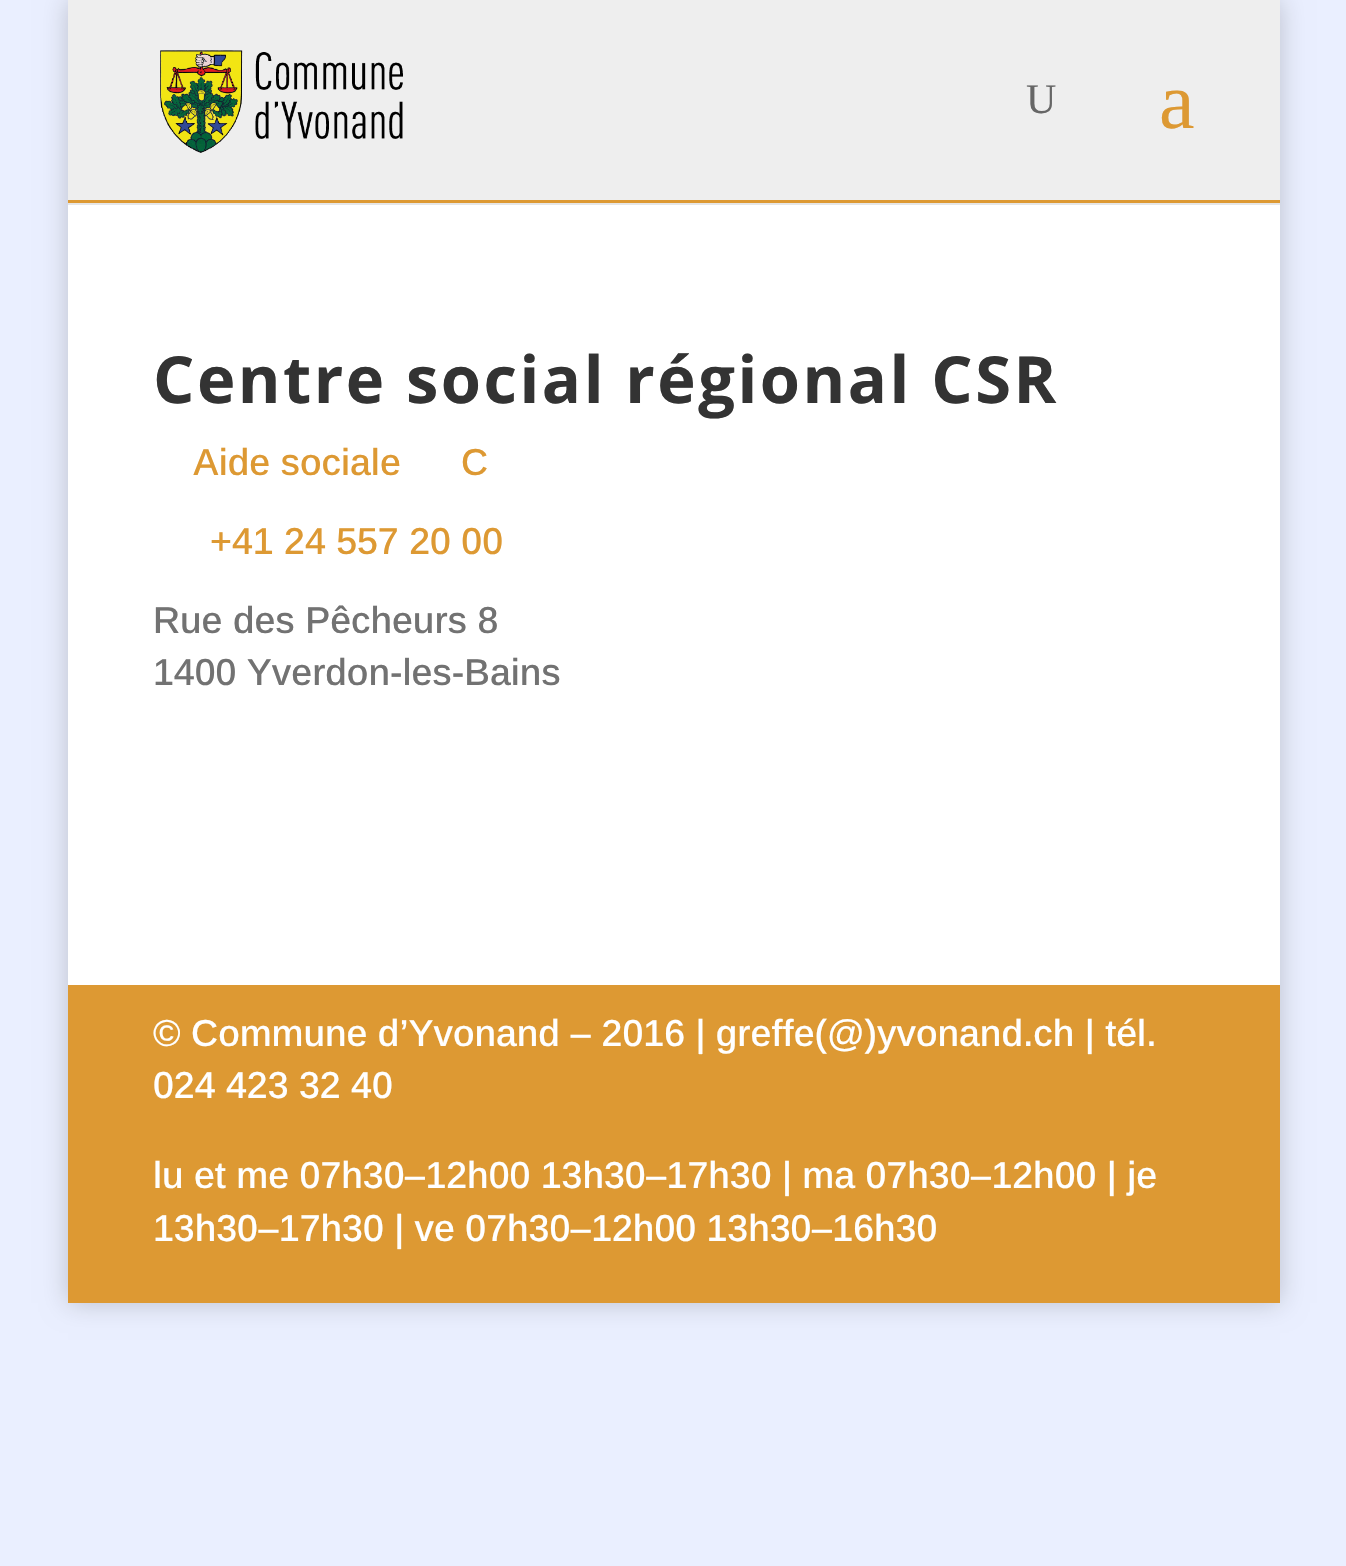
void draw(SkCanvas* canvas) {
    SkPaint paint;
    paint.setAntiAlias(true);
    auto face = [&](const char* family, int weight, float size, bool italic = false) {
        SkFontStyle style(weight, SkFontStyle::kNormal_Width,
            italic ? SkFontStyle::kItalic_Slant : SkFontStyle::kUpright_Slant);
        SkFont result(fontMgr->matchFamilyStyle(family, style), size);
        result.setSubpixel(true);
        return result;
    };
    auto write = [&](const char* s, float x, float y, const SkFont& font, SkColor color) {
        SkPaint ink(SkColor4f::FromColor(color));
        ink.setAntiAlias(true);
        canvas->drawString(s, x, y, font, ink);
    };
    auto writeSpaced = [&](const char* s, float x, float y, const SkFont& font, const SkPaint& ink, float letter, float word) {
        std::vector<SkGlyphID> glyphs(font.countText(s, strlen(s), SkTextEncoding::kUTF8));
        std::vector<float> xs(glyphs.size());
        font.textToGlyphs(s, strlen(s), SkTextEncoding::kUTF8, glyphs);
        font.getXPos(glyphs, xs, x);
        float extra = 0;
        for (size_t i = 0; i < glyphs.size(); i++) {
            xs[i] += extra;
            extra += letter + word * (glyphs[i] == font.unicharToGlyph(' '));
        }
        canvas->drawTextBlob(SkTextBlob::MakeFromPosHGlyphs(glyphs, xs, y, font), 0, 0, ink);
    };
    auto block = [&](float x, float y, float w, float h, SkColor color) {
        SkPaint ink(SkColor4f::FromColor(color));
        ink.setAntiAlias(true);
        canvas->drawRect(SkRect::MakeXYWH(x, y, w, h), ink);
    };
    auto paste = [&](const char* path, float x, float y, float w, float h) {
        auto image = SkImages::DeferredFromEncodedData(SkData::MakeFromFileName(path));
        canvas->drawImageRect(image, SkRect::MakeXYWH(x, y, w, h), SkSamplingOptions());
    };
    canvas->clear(SkColorSetRGB(234, 239, 255));
    paint.setColor(SkColorSetARGB(51, 0, 0, 0));
    paint.setMaskFilter(SkMaskFilter::MakeBlur(kNormal_SkBlurStyle, 12.5f));
    canvas->drawRect(SkRect::MakeXYWH(68, 0, 1212, 1303), paint);
    paint.setMaskFilter(nullptr);
    block(68, 203, 1212, 2, SkColorSetRGB(230, 230, 230));
    block(68, 0, 1212, 200, SkColorSetRGB(238, 238, 238));
    block(68, 200, 1212, 3, SkColorSetRGB(221, 153, 51));
    paste("pic1.png", 160, 50, 243, 103);
    auto kFont1 = face("Liberation Serif", 400, 42);
    write("U", 1026, 113, kFont1, SkColorSetRGB(102, 102, 102));
    auto kFont2 = face("Liberation Serif", 400, 80);
    write("a", 1159, 128, kFont2, SkColorSetRGB(221, 153, 51));
    block(68, 205, 1212, 780, SK_ColorWHITE);
    auto kFont3 = face("Open Sans", 700, 65);
    paint.setColor(SkColorSetRGB(51, 51, 51));
    writeSpaced("Centre social régional CSR", 153, 403, kFont3, paint, 2.5f, 0);
    auto kFont4 = face("Arimo", 500, 37.5f);
    write("Aide sociale", 193, 475, kFont4, SkColorSetRGB(221, 153, 51));
    write("C", 461, 475, kFont4, SkColorSetRGB(221, 153, 51));
    write("+41 24 557 20 00", 210, 554, kFont4, SkColorSetRGB(221, 153, 51));
    write("Rue des Pêcheurs 8", 153, 633, kFont4, SkColorSetRGB(114, 114, 114));
    write("1400 Yverdon-les-Bains", 153, 685, kFont4, SkColorSetRGB(114, 114, 114));
    block(68, 985, 1212, 318, SkColorSetRGB(221, 153, 51));
    write("© Commune d’Yvonand – 2016 | greffe(@)yvonand.ch | tél.", 153, 1046, kFont4, SK_ColorWHITE);
    write("024 423 32 40", 153, 1098, kFont4, SK_ColorWHITE);
    write("lu et me 07h30–12h00 13h30–17h30 | ma 07h30–12h00 | je", 153, 1188, kFont4, SK_ColorWHITE);
    write("13h30–17h30 | ve 07h30–12h00 13h30–16h30", 153, 1241, kFont4, SK_ColorWHITE);
}
